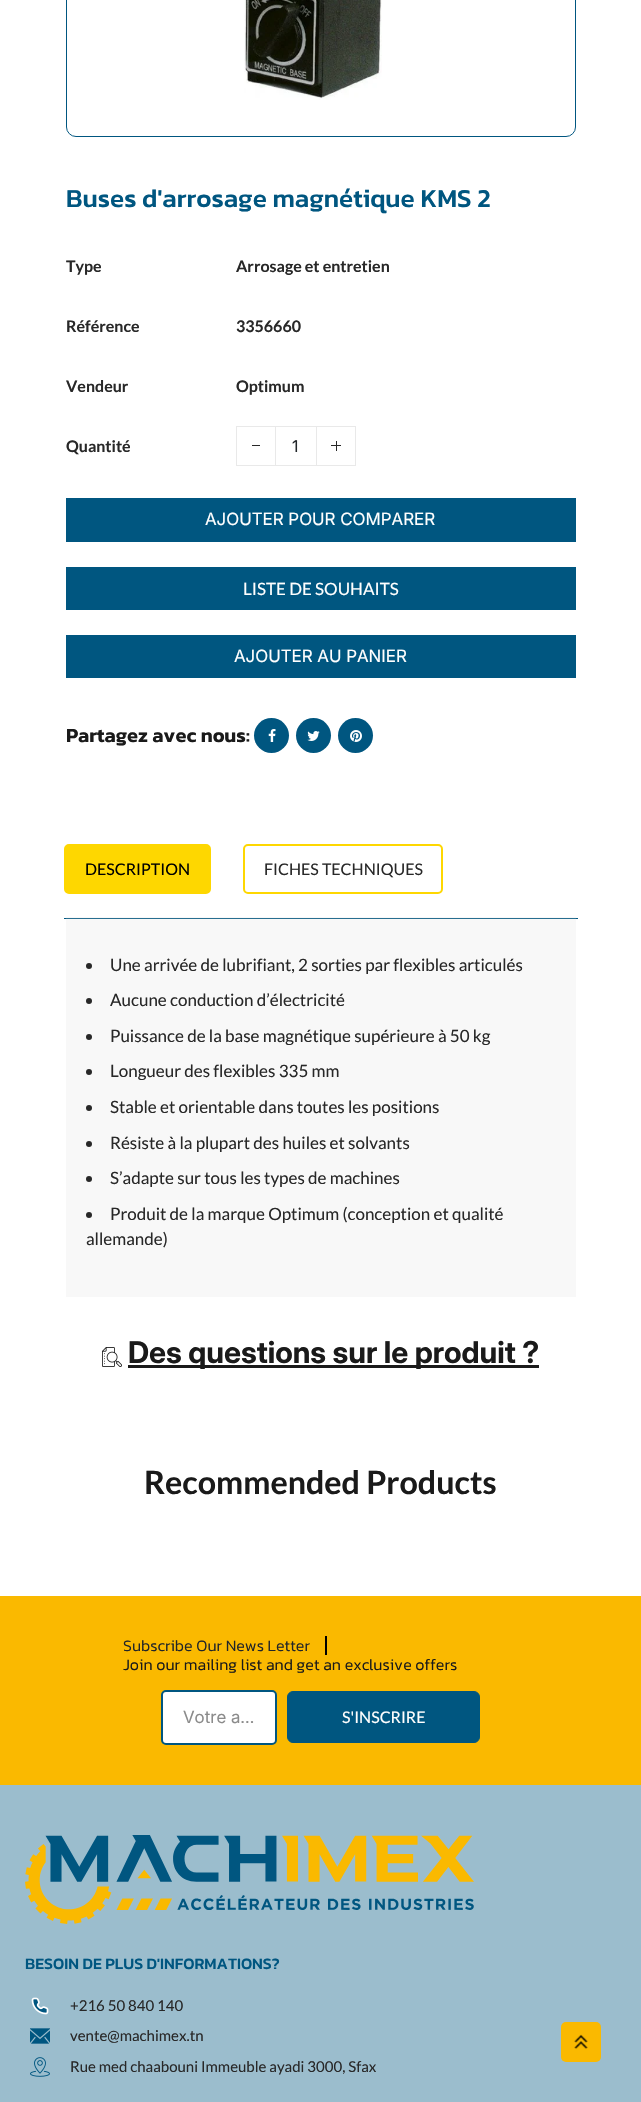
void draw(SkCanvas* canvas) {
    SkPaint paint;
    paint.setAntiAlias(true);
    auto face = [&](const char* family, int weight, float size, bool italic = false) {
        SkFontStyle style(weight, SkFontStyle::kNormal_Width,
            italic ? SkFontStyle::kItalic_Slant : SkFontStyle::kUpright_Slant);
        SkFont result(fontMgr->matchFamilyStyle(family, style), size);
        result.setSubpixel(true);
        return result;
    };
    auto write = [&](const char* s, float x, float y, const SkFont& font, SkColor color) {
        SkPaint ink(SkColor4f::FromColor(color));
        ink.setAntiAlias(true);
        canvas->drawString(s, x, y, font, ink);
    };
    auto block = [&](float x, float y, float w, float h, SkColor color) {
        SkPaint ink(SkColor4f::FromColor(color));
        ink.setAntiAlias(true);
        canvas->drawRect(SkRect::MakeXYWH(x, y, w, h), ink);
    };
    auto card = [&](float x, float y, float w, float h, float radius, SkColor color) {
        SkPaint ink(SkColor4f::FromColor(color));
        ink.setAntiAlias(true);
        canvas->drawRoundRect(SkRect::MakeXYWH(x, y, w, h), radius, radius, ink);
    };
    auto paste = [&](const char* path, float x, float y, float w, float h) {
        auto image = SkImages::DeferredFromEncodedData(SkData::MakeFromFileName(path));
        canvas->drawImageRect(image, SkRect::MakeXYWH(x, y, w, h), SkSamplingOptions());
    };
    canvas->clear(SK_ColorWHITE);
    block(66, 917, 510, 380, SkColorSetRGB(248, 248, 248));
    paint.setStyle(SkPaint::kStroke_Style);
    paint.setStrokeWidth(1);
    paint.setColor(SkColorSetRGB(0, 86, 128));
    canvas->drawRoundRect(SkRect::MakeXYWH(66.5f, -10.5f, 509, 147), 9.5f, 9.5f, paint);
    paste("pic1.png", 244, 0, 138, 100);
    auto kFont1 = face("Kanit", 500, 26);
    write("Buses d'arrosage magnétique KMS 2", 66, 207, kFont1, SkColorSetRGB(0, 86, 128));
    auto kFont2 = face("Lato", 700, 16);
    write("Type", 66, 272, kFont2, SkColorSetRGB(40, 40, 40));
    write("Arrosage et entretien", 236, 272, kFont2, SkColorSetRGB(40, 40, 40));
    write("Référence", 66, 332, kFont2, SkColorSetRGB(40, 40, 40));
    write("3356660", 236, 332, kFont2, SkColorSetRGB(40, 40, 40));
    write("Vendeur", 66, 392, kFont2, SkColorSetRGB(40, 40, 40));
    write("Optimum", 236, 392, kFont2, SkColorSetRGB(40, 40, 40));
    write("Quantité", 66, 452, kFont2, SkColorSetRGB(40, 40, 40));
    paint.setColor(SkColorSetRGB(233, 233, 233));
    canvas->drawRect(SkRect::MakeXYWH(236.5f, 426.5f, 39, 39), paint);
    block(252, 445, 8, 1, SkColorSetRGB(40, 40, 40));
    block(276, 426, 40, 1, SkColorSetRGB(233, 233, 233));
    block(276, 465, 40, 1, SkColorSetRGB(233, 233, 233));
    auto kFont3 = face("Inter", 400, 16);
    write("1", 292, 452, kFont3, SkColorSetRGB(33, 37, 41));
    canvas->drawRect(SkRect::MakeXYWH(316.5f, 426.5f, 39, 39), paint);
    block(331, 445, 10, 1, SkColorSetRGB(40, 40, 40));
    block(336, 441, 1, 10, SkColorSetRGB(40, 40, 40));
    block(66, 498, 510, 44, SkColorSetRGB(0, 86, 128));
    auto kFont4 = face("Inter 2", 400, 17);
    write("AJOUTER POUR COMPARER", 205, 525, kFont4, SK_ColorWHITE);
    block(66, 567, 510, 43, SkColorSetRGB(0, 86, 128));
    auto kFont5 = face("Lato", 400, 17);
    write("LISTE DE SOUHAITS", 243, 595, kFont5, SK_ColorWHITE);
    block(66, 635, 510, 43, SkColorSetRGB(0, 86, 128));
    write("AJOUTER AU PANIER", 234, 662, kFont4, SK_ColorWHITE);
    auto kFont6 = face("Kanit", 600, 20);
    write("Partagez avec nous:", 66, 742, kFont6, SkColorSetRGB(26, 26, 26));
    paint.setStyle(SkPaint::kFill_Style);
    paint.setColor(SkColorSetRGB(0, 86, 128));
    canvas->drawCircle(271.5f, 735.5f, 17.5f, paint);
    paste("pic2.png", 268, 729, 8, 13);
    canvas->drawCircle(313.5f, 735.5f, 17.5f, paint);
    paste("pic3.png", 307, 731, 13, 10);
    canvas->drawCircle(355.5f, 735.5f, 17.5f, paint);
    paste("pic4.png", 350, 730, 12, 12);
    block(64, 918, 514, 1, SkColorSetRGB(0, 86, 128));
    block(66, 918, 510, 1, SkColorSetRGB(39, 110, 144));
    paint.setColor(SkColorSetRGB(254, 215, 0));
    canvas->drawRoundRect(SkRect::MakeXYWH(65, 845, 145, 48), 4, 4, paint);
    paint.setStyle(SkPaint::kStroke_Style);
    paint.setStrokeWidth(2);
    canvas->drawRoundRect(SkRect::MakeXYWH(65, 845, 145, 48), 4, 4, paint);
    auto kFont7 = face("Lato", 400, 16);
    write("DESCRIPTION", 85, 875, kFont7, SK_ColorBLACK);
    canvas->drawRoundRect(SkRect::MakeXYWH(244, 845, 198, 48), 4, 4, paint);
    write("FICHES TECHNIQUES", 264, 875, kFont7, SkColorSetRGB(40, 40, 40));
    paint.setStyle(SkPaint::kFill_Style);
    paint.setColor(SkColorSetRGB(40, 40, 40));
    canvas->drawCircle(89, 966, 3, paint);
    write("Une arrivée de lubrifiant, 2 sorties par flexibles articulés", 110, 971, kFont5, SkColorSetRGB(40, 40, 40));
    canvas->drawCircle(89, 1001, 3, paint);
    write("Aucune conduction d’électricité", 110, 1006, kFont5, SkColorSetRGB(40, 40, 40));
    canvas->drawCircle(89, 1037, 3, paint);
    write("Puissance de la base magnétique supérieure à 50 kg", 110, 1042, kFont5, SkColorSetRGB(40, 40, 40));
    canvas->drawCircle(89, 1072, 3, paint);
    write("Longueur des flexibles 335 mm", 110, 1077, kFont5, SkColorSetRGB(40, 40, 40));
    canvas->drawCircle(89, 1108, 3, paint);
    write("Stable et orientable dans toutes les positions", 110, 1113, kFont5, SkColorSetRGB(40, 40, 40));
    canvas->drawCircle(89, 1144, 3, paint);
    write("Résiste à la plupart des huiles et solvants", 110, 1149, kFont5, SkColorSetRGB(40, 40, 40));
    canvas->drawCircle(89, 1179, 3, paint);
    write("S’adapte sur tous les types de machines", 110, 1184, kFont5, SkColorSetRGB(40, 40, 40));
    canvas->drawCircle(89, 1215, 3, paint);
    write("Produit de la marque Optimum (conception et qualité", 110, 1220, kFont5, SkColorSetRGB(40, 40, 40));
    write("allemande)", 86, 1245, kFont5, SkColorSetRGB(40, 40, 40));
    paste("pic5.png", 102, 1347, 20, 20);
    block(128, 1365, 411, 3, SkColorSetRGB(26, 26, 26));
    auto kFont8 = face("Inter", 700, 30);
    write("Des questions sur le produit ?", 128, 1363, kFont8, SkColorSetRGB(26, 26, 26));
    auto kFont9 = face("Lato", 700, 32.25f);
    write("Recommended Products", 144, 1494, kFont9, SkColorSetRGB(26, 26, 26));
    block(0, 1596, 641, 189, SkColorSetRGB(250, 185, 0));
    block(325, 1636, 2, 19, SK_ColorBLACK);
    auto kFont10 = face("Kanit", 300, 16);
    write("Subscribe Our News Letter", 123, 1651, kFont10, SkColorSetRGB(33, 37, 41));
    write("Join our mailing list and get an exclusive offers", 123, 1670, kFont10, SkColorSetRGB(26, 26, 26));
    paint.setColor(SK_ColorWHITE);
    canvas->drawRoundRect(SkRect::MakeXYWH(162, 1691, 114, 53), 4, 4, paint);
    paint.setStyle(SkPaint::kStroke_Style);
    paint.setColor(SkColorSetRGB(0, 86, 128));
    canvas->drawRoundRect(SkRect::MakeXYWH(162, 1691, 114, 53), 4, 4, paint);
    write("Votre a…", 183, 1723, kFont4, SkColorSetRGB(139, 139, 139));
    paint.setStyle(SkPaint::kFill_Style);
    canvas->drawRoundRect(SkRect::MakeXYWH(287.5f, 1691.5f, 192, 51), 5.5f, 5.5f, paint);
    paint.setStyle(SkPaint::kStroke_Style);
    paint.setStrokeWidth(1);
    canvas->drawRoundRect(SkRect::MakeXYWH(287.5f, 1691.5f, 192, 51), 5.5f, 5.5f, paint);
    write("S'INSCRIRE", 342, 1723, kFont7, SK_ColorWHITE);
    block(0, 1785, 641, 317, SkColorSetRGB(155, 189, 205));
    paste("pic6.png", 25, 1835, 449, 89);
    auto kFont11 = face("Kanit", 500, 16);
    write("BESOIN DE PLUS D'INFORMATIONS?", 25, 1969, kFont11, SkColorSetRGB(0, 86, 128));
    paste("pic7.png", 31, 1997, 18, 18);
    auto kFont12 = face("Lato", 400, 15);
    write("+216 50 840 140", 70, 2011, kFont12, SkColorSetRGB(40, 40, 40));
    paste("pic8.png", 30, 2028, 20, 16);
    write("vente@machimex.tn", 70, 2041, kFont12, SkColorSetRGB(40, 40, 40));
    paste("pic9.png", 30, 2057, 20, 20);
    write("Rue med chaabouni Immeuble ayadi 3000, Sfax", 70, 2072, kFont12, SkColorSetRGB(40, 40, 40));
    card(561, 2022, 40, 40, 5, SkColorSetRGB(250, 185, 0));
    paste("pic10.png", 574, 2034, 14, 15);
}
